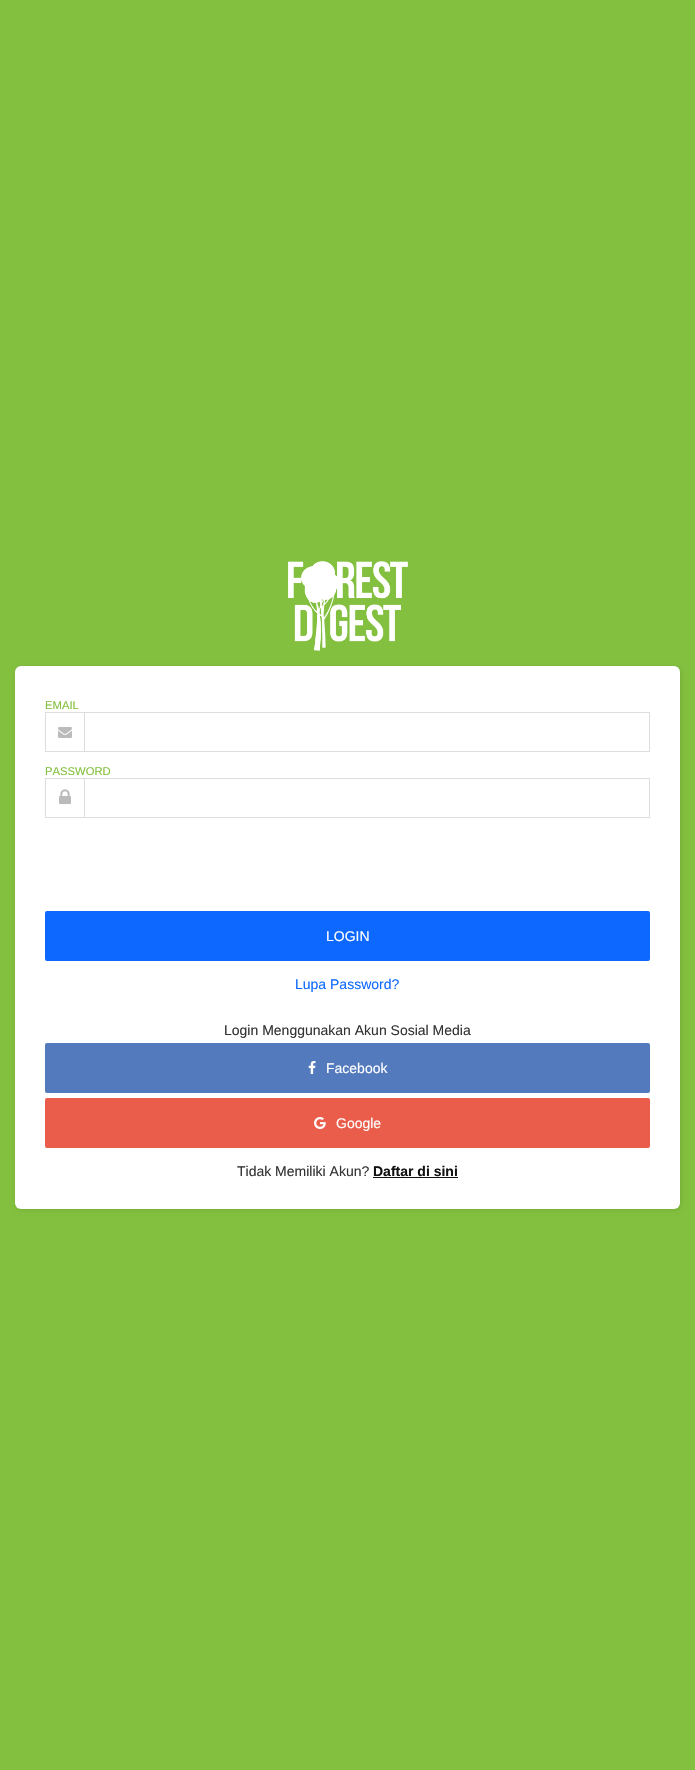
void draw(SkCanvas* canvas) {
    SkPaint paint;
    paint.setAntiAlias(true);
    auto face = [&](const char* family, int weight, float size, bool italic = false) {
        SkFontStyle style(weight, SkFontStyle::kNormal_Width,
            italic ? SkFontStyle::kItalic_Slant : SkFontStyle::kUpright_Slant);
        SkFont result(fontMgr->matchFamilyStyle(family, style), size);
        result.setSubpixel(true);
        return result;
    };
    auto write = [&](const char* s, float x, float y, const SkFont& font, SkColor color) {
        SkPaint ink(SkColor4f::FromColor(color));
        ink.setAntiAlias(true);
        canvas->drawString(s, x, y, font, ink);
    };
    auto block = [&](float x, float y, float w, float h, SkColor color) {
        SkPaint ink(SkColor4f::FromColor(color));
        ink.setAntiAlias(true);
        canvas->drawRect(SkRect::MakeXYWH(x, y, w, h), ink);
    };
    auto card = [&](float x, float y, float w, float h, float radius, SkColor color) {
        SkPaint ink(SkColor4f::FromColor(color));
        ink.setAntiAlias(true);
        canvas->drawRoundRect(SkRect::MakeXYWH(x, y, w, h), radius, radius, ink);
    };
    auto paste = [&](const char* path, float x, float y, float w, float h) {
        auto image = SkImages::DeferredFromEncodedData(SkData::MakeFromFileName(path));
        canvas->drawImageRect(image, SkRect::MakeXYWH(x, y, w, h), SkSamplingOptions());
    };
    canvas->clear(SkColorSetRGB(131, 192, 63));
    paste("pic1.png", 288, 561, 120, 90);
    paint.setColor(SkColorSetARGB(26, 0, 0, 0));
    paint.setMaskFilter(SkMaskFilter::MakeBlur(kNormal_SkBlurStyle, 2.5f));
    canvas->drawRoundRect(SkRect::MakeXYWH(16, 667, 665, 543), 6, 6, paint);
    paint.setMaskFilter(nullptr);
    card(15, 666, 665, 543, 6, SK_ColorWHITE);
    auto kFont1 = face("Liberation Sans", 400, 11.25f);
    write("EMAIL", 45, 709, kFont1, SkColorSetRGB(131, 192, 63));
    paint.setStyle(SkPaint::kStroke_Style);
    paint.setStrokeWidth(1);
    paint.setColor(SkColorSetRGB(221, 221, 221));
    canvas->drawRect(SkRect::MakeXYWH(45.5f, 712.5f, 604, 39), paint);
    block(84, 712, 1, 40, SkColorSetRGB(221, 221, 221));
    paste("pic2.png", 58, 727, 14, 11);
    write("PASSWORD", 45, 775, kFont1, SkColorSetRGB(131, 192, 63));
    canvas->drawRect(SkRect::MakeXYWH(45.5f, 778.5f, 604, 39), paint);
    block(84, 778, 1, 40, SkColorSetRGB(221, 221, 221));
    paste("pic3.png", 59, 789, 12, 15);
    card(45, 911, 605, 50, 2, SkColorSetRGB(13, 104, 255));
    auto kFont2 = face("Liberation Sans", 400, 14);
    write("LOGIN", 326, 941, kFont2, SK_ColorWHITE);
    write("Lupa Password?", 295, 989, kFont2, SkColorSetRGB(13, 104, 255));
    write("Login Menggunakan Akun Sosial Media", 224, 1035, kFont2, SkColorSetRGB(51, 51, 51));
    card(45, 1043, 605, 50, 2, SkColorSetRGB(83, 122, 189));
    paste("pic4.png", 308, 1061, 8, 13);
    write("Facebook", 326, 1073, kFont2, SK_ColorWHITE);
    card(45, 1098, 605, 50, 2, SkColorSetRGB(234, 93, 75));
    paste("pic5.png", 314, 1117, 12, 12);
    write("Google", 336, 1128, kFont2, SK_ColorWHITE);
    write("Tidak Memiliki Akun?", 237, 1176, kFont2, SkColorSetRGB(51, 51, 51));
    auto kFont3 = face("Liberation Sans", 700, 14);
    write("Daftar di sini", 373, 1176, kFont3, SkColorSetRGB(17, 17, 17));
    block(373, 1177, 85, 1, SkColorSetRGB(17, 17, 17));
}
